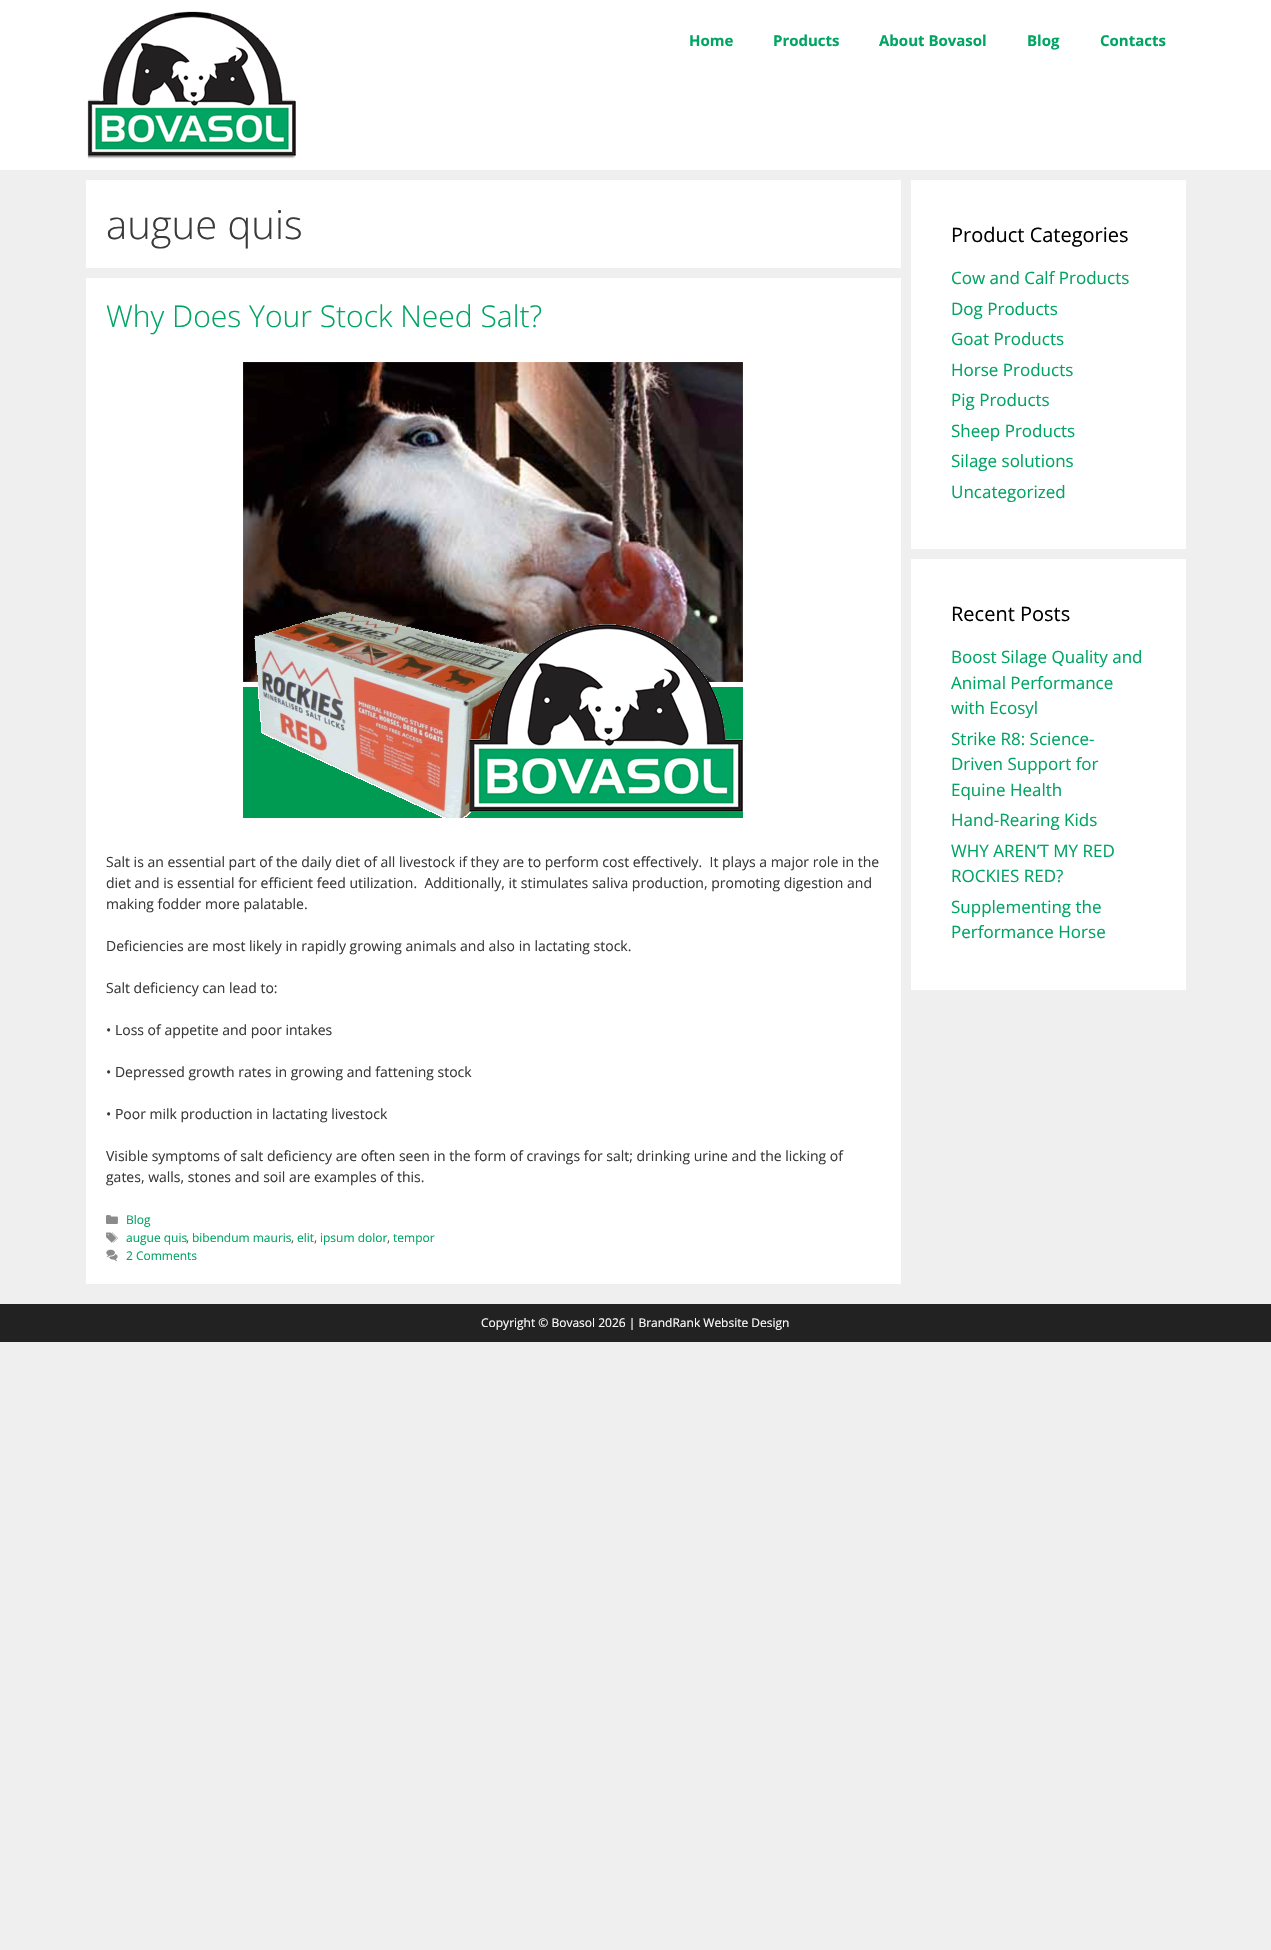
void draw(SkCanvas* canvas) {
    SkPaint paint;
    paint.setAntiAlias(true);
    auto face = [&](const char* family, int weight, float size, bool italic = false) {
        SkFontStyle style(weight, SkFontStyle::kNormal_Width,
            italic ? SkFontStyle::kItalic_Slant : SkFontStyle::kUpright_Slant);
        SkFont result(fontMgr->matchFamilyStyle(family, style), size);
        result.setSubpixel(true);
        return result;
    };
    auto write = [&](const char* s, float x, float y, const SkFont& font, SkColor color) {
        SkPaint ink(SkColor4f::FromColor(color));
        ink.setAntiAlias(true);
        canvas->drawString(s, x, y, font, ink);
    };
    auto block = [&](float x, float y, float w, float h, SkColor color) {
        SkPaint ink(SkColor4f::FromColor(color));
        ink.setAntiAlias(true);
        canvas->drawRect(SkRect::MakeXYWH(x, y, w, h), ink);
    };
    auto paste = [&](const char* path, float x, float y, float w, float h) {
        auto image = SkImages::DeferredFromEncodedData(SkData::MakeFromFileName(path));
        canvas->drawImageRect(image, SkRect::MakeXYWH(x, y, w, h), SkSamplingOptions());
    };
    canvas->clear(SkColorSetRGB(239, 239, 239));
    block(0, 0, 1271, 170, SK_ColorWHITE);
    paste("pic1.png", 87, 11, 209, 148);
    auto kFont1 = face("Open Sans", 700, 15);
    write("Home", 689, 46, kFont1, SkColorSetRGB(0, 164, 99));
    write("Products", 773, 46, kFont1, SkColorSetRGB(0, 164, 99));
    write("About Bovasol", 879, 46, kFont1, SkColorSetRGB(0, 164, 99));
    write("Blog", 1027, 46, kFont1, SkColorSetRGB(0, 164, 99));
    write("Contacts", 1100, 46, kFont1, SkColorSetRGB(0, 164, 99));
    block(86, 180, 815, 88, SK_ColorWHITE);
    auto kFont2 = face("Open Sans", 300, 40);
    write("augue quis", 106, 239, kFont2, SkColorSetRGB(58, 58, 58));
    block(86, 278, 815, 1006, SK_ColorWHITE);
    auto kFont3 = face("Open Sans", 300, 30);
    write("Why Does Your Stock Need Salt?", 106, 327, kFont3, SkColorSetRGB(0, 164, 99));
    paste("pic2.png", 243, 362, 500, 456);
    auto kFont4 = face("Open Sans", 400, 14);
    write("Salt is an essential part of the daily diet of all livestock if they are to perform cost effectively.  It plays a major role in the", 106, 867, kFont4, SkColorSetRGB(58, 58, 58));
    write("diet and is essential for efficient feed utilization.  Additionally, it stimulates saliva production, promoting digestion and", 106, 888, kFont4, SkColorSetRGB(58, 58, 58));
    write("making fodder more palatable.", 106, 909, kFont4, SkColorSetRGB(58, 58, 58));
    write("Deficiencies are most likely in rapidly growing animals and also in lactating stock.", 106, 951, kFont4, SkColorSetRGB(58, 58, 58));
    write("Salt deficiency can lead to:", 106, 993, kFont4, SkColorSetRGB(58, 58, 58));
    write("• Loss of appetite and poor intakes", 106, 1035, kFont4, SkColorSetRGB(58, 58, 58));
    write("• Depressed growth rates in growing and fattening stock", 106, 1077, kFont4, SkColorSetRGB(58, 58, 58));
    write("• Poor milk production in lactating livestock", 106, 1119, kFont4, SkColorSetRGB(58, 58, 58));
    write("Visible symptoms of salt deficiency are often seen in the form of cravings for salt; drinking urine and the licking of", 106, 1161, kFont4, SkColorSetRGB(58, 58, 58));
    write("gates, walls, stones and soil are examples of this.", 106, 1182, kFont4, SkColorSetRGB(58, 58, 58));
    paste("pic3.png", 106, 1215, 12, 9);
    auto kFont5 = face("Open Sans", 400, 12);
    write("Blog", 126, 1224, kFont5, SkColorSetRGB(0, 164, 99));
    paste("pic4.png", 106, 1232, 12, 11);
    write("augue quis", 126, 1242, kFont5, SkColorSetRGB(0, 164, 99));
    write(",", 186, 1242, kFont5, SkColorSetRGB(89, 89, 89));
    write("bibendum mauris", 192, 1242, kFont5, SkColorSetRGB(0, 164, 99));
    write(",", 291, 1242, kFont5, SkColorSetRGB(89, 89, 89));
    write("elit", 297, 1242, kFont5, SkColorSetRGB(0, 164, 99));
    write(",", 314, 1242, kFont5, SkColorSetRGB(89, 89, 89));
    write("ipsum dolor", 320, 1242, kFont5, SkColorSetRGB(0, 164, 99));
    write(",", 387, 1242, kFont5, SkColorSetRGB(89, 89, 89));
    write("tempor", 393, 1242, kFont5, SkColorSetRGB(0, 164, 99));
    paste("pic5.png", 106, 1249, 12, 13);
    write("2 Comments", 126, 1260, kFont5, SkColorSetRGB(0, 164, 99));
    block(911, 180, 275, 369, SK_ColorWHITE);
    auto kFont6 = face("Open Sans", 400, 20);
    write("Product Categories", 951, 242, kFont6, SK_ColorBLACK);
    auto kFont7 = face("Open Sans", 400, 17);
    write("Cow and Calf Products", 951, 284, kFont7, SkColorSetRGB(0, 164, 99));
    write("Dog Products", 951, 315, kFont7, SkColorSetRGB(0, 164, 99));
    write("Goat Products", 951, 345, kFont7, SkColorSetRGB(0, 164, 99));
    write("Horse Products", 951, 376, kFont7, SkColorSetRGB(0, 164, 99));
    write("Pig Products", 951, 406, kFont7, SkColorSetRGB(0, 164, 99));
    write("Sheep Products", 951, 437, kFont7, SkColorSetRGB(0, 164, 99));
    write("Silage solutions", 951, 467, kFont7, SkColorSetRGB(0, 164, 99));
    write("Uncategorized", 951, 498, kFont7, SkColorSetRGB(0, 164, 99));
    block(911, 559, 275, 431, SK_ColorWHITE);
    write("Recent Posts", 951, 621, kFont6, SK_ColorBLACK);
    write("Boost Silage Quality and", 951, 663, kFont7, SkColorSetRGB(0, 164, 99));
    write("Animal Performance", 951, 689, kFont7, SkColorSetRGB(0, 164, 99));
    write("with Ecosyl", 951, 714, kFont7, SkColorSetRGB(0, 164, 99));
    write("Strike R8: Science-", 951, 745, kFont7, SkColorSetRGB(0, 164, 99));
    write("Driven Support for", 951, 770, kFont7, SkColorSetRGB(0, 164, 99));
    write("Equine Health", 951, 796, kFont7, SkColorSetRGB(0, 164, 99));
    write("Hand-Rearing Kids", 951, 826, kFont7, SkColorSetRGB(0, 164, 99));
    write("WHY AREN’T MY RED", 951, 857, kFont7, SkColorSetRGB(0, 164, 99));
    write("ROCKIES RED?", 951, 882, kFont7, SkColorSetRGB(0, 164, 99));
    write("Supplementing the", 951, 913, kFont7, SkColorSetRGB(0, 164, 99));
    write("Performance Horse", 951, 938, kFont7, SkColorSetRGB(0, 164, 99));
    block(0, 1304, 1271, 38, SkColorSetRGB(34, 34, 34));
    write("Copyright © Bovasol 2026 | BrandRank Website Design", 481, 1327, kFont5, SK_ColorWHITE);
}
